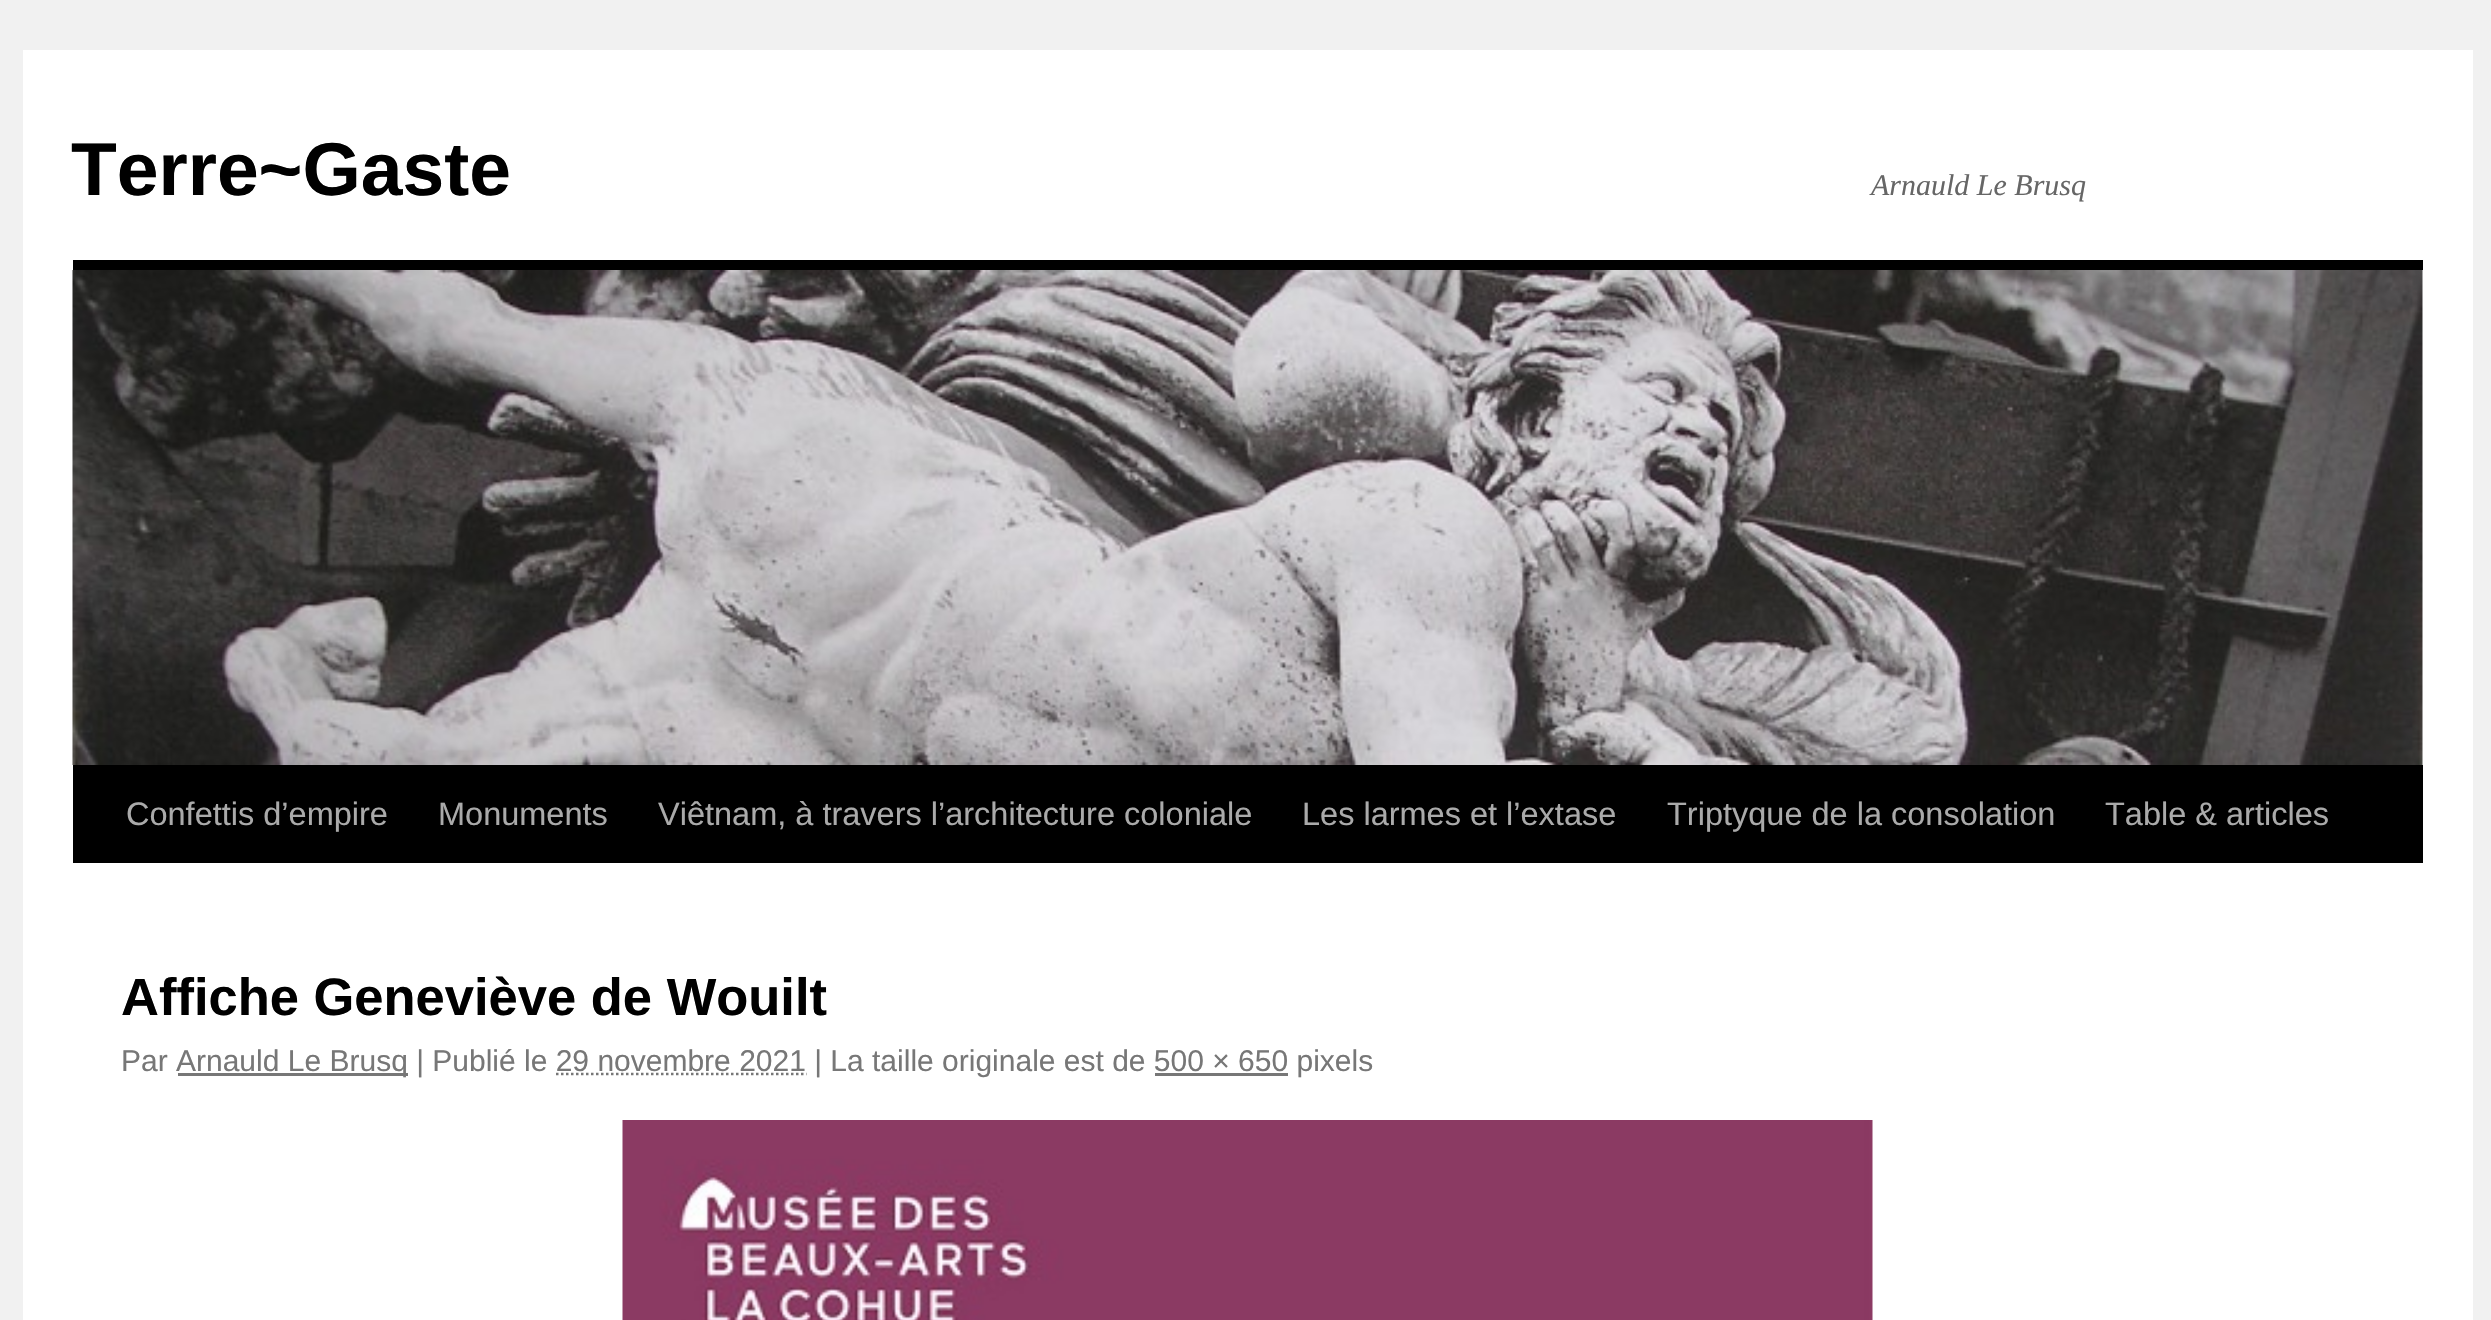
void draw(SkCanvas* canvas) {
    SkPaint paint;
    paint.setAntiAlias(true);
    auto face = [&](const char* family, int weight, float size, bool italic = false) {
        SkFontStyle style(weight, SkFontStyle::kNormal_Width,
            italic ? SkFontStyle::kItalic_Slant : SkFontStyle::kUpright_Slant);
        SkFont result(fontMgr->matchFamilyStyle(family, style), size);
        result.setSubpixel(true);
        return result;
    };
    auto write = [&](const char* s, float x, float y, const SkFont& font, SkColor color) {
        SkPaint ink(SkColor4f::FromColor(color));
        ink.setAntiAlias(true);
        canvas->drawString(s, x, y, font, ink);
    };
    auto block = [&](float x, float y, float w, float h, SkColor color) {
        SkPaint ink(SkColor4f::FromColor(color));
        ink.setAntiAlias(true);
        canvas->drawRect(SkRect::MakeXYWH(x, y, w, h), ink);
    };
    auto paste = [&](const char* path, float x, float y, float w, float h) {
        auto image = SkImages::DeferredFromEncodedData(SkData::MakeFromFileName(path));
        canvas->drawImageRect(image, SkRect::MakeXYWH(x, y, w, h), SkSamplingOptions());
    };
    canvas->clear(SkColorSetRGB(241, 241, 241));
    block(23, 50, 2450, 1270, SK_ColorWHITE);
    auto kFont1 = face("Liberation Sans", 700, 75);
    write("Terre~Gaste", 71, 195, kFont1, SK_ColorBLACK);
    auto kFont2 = face("Liberation Serif", 400, 30, true);
    write("Arnauld Le Brusq", 1871, 195, kFont2, SkColorSetRGB(102, 102, 102));
    block(73, 260, 2350, 10, SK_ColorBLACK);
    block(73, 765, 2350, 98, SK_ColorBLACK);
    paste("pic1.png", 72, 270, 2351, 495);
    auto kFont3 = face("Liberation Sans", 400, 32.5f);
    write("Confettis d’empire", 126, 825, kFont3, SkColorSetRGB(170, 170, 170));
    write("Monuments", 438, 825, kFont3, SkColorSetRGB(170, 170, 170));
    write("Viêtnam, à travers l’architecture coloniale", 658, 825, kFont3, SkColorSetRGB(170, 170, 170));
    write("Les larmes et l’extase", 1302, 825, kFont3, SkColorSetRGB(170, 170, 170));
    write("Triptyque de la consolation", 1667, 825, kFont3, SkColorSetRGB(170, 170, 170));
    write("Table & articles", 2105, 825, kFont3, SkColorSetRGB(170, 170, 170));
    auto kFont4 = face("Liberation Sans", 700, 52.5f);
    write("Affiche Geneviève de Wouilt", 121, 1015, kFont4, SK_ColorBLACK);
    auto kFont5 = face("Liberation Sans", 400, 30);
    write("Par", 121, 1071, kFont5, SkColorSetRGB(119, 119, 119));
    block(178, 1073, 230, 3, SkColorSetRGB(119, 119, 119));
    write("Arnauld Le Brusq | Publié le 29 novembre 2021 | La taille originale est de 500 × 650 pixels", 176, 1071, kFont5, SkColorSetRGB(119, 119, 119));
    paint.setStyle(SkPaint::kStroke_Style);
    paint.setStrokeWidth(2.5f);
    paint.setColor(SkColorSetRGB(119, 119, 119));
    paint.setPathEffect(SkDashPathEffect::Make({{2.5f, 2.5f}}, 0));
    canvas->drawPath(SkPathBuilder().moveTo(556, 1074).lineTo(806.5f, 1074).detach(), paint);
    paint.setPathEffect(nullptr);
    block(1155, 1073, 133, 3, SkColorSetRGB(119, 119, 119));
    paste("pic2.png", 622, 1120, 1251, 200);
}
